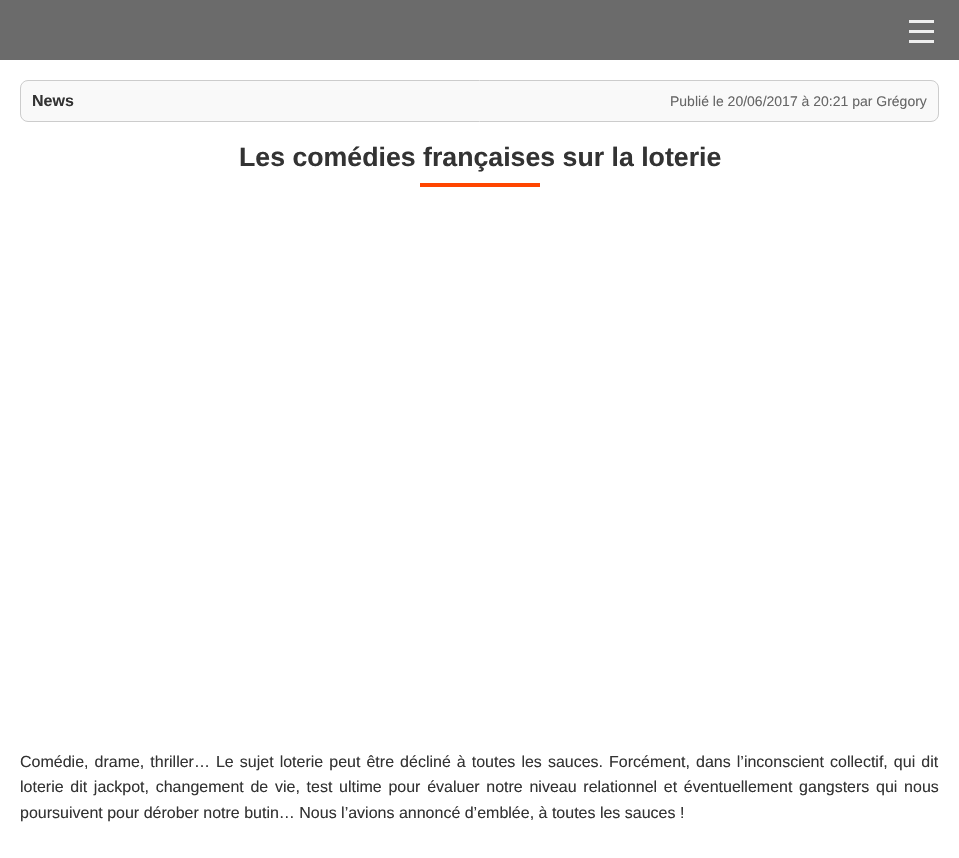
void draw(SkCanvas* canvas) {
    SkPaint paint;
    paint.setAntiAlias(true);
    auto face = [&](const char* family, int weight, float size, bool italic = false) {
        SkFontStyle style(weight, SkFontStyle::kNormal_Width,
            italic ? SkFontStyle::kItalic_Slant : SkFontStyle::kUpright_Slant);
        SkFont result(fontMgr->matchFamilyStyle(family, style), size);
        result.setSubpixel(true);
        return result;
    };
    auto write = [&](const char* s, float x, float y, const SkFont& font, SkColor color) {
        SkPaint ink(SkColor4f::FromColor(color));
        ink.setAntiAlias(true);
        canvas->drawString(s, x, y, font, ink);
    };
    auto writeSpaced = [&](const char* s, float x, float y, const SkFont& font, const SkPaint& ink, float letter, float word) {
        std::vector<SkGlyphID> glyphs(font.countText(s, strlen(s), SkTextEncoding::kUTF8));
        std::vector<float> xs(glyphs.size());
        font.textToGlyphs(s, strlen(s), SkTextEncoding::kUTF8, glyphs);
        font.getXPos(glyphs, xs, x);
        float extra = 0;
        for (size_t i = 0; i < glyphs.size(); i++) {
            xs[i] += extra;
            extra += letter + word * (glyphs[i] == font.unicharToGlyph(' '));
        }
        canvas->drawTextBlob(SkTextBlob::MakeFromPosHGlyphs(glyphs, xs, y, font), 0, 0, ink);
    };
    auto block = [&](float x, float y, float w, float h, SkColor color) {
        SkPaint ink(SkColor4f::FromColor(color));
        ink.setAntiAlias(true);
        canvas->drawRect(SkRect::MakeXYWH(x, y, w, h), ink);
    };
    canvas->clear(SK_ColorWHITE);
    block(0, 0, 959, 60, SkColorSetRGB(107, 107, 107));
    block(909, 20, 25, 3, SkColorSetRGB(238, 238, 238));
    block(909, 30, 25, 3, SkColorSetRGB(238, 238, 238));
    block(909, 40, 25, 3, SkColorSetRGB(238, 238, 238));
    paint.setColor(SkColorSetRGB(249, 249, 249));
    canvas->drawRoundRect(SkRect::MakeXYWH(20.5f, 80.5f, 918, 41), 7.5f, 7.5f, paint);
    paint.setStyle(SkPaint::kStroke_Style);
    paint.setStrokeWidth(1);
    paint.setColor(SkColorSetRGB(204, 204, 204));
    canvas->drawRoundRect(SkRect::MakeXYWH(20.5f, 80.5f, 918, 41), 7.5f, 7.5f, paint);
    auto kFont1 = face("Liberation Sans", 700, 16);
    write("News", 32, 106, kFont1, SkColorSetRGB(51, 51, 51));
    auto kFont2 = face("Liberation Sans", 400, 14);
    write("Publié le 20/06/2017 à 20:21 par Grégory", 670, 106, kFont2, SkColorSetRGB(102, 102, 102));
    auto kFont3 = face("Liberation Sans", 700, 26.7f);
    write("Les comédies françaises sur la loterie", 239, 166, kFont3, SkColorSetRGB(51, 51, 51));
    block(420, 183, 120, 4, SkColorSetRGB(255, 69, 0));
    auto kFont4 = face("Liberation Sans", 400, 16);
    paint.setStyle(SkPaint::kFill_Style);
    paint.setColor(SkColorSetRGB(51, 51, 51));
    writeSpaced("Comédie, drame, thriller… Le sujet loterie peut être décliné à toutes les sauces. Forcément, dans l’inconscient collectif, qui dit", 20, 767, kFont4, paint, 0, 1.6f);
    writeSpaced("loterie dit jackpot, changement de vie, test ultime pour évaluer notre niveau relationnel et éventuellement gangsters qui nous", 20, 792, kFont4, paint, 0, 2.25f);
    write("poursuivent pour dérober notre butin… Nous l’avions annoncé d’emblée, à toutes les sauces !", 20, 818, kFont4, SkColorSetRGB(51, 51, 51));
}
